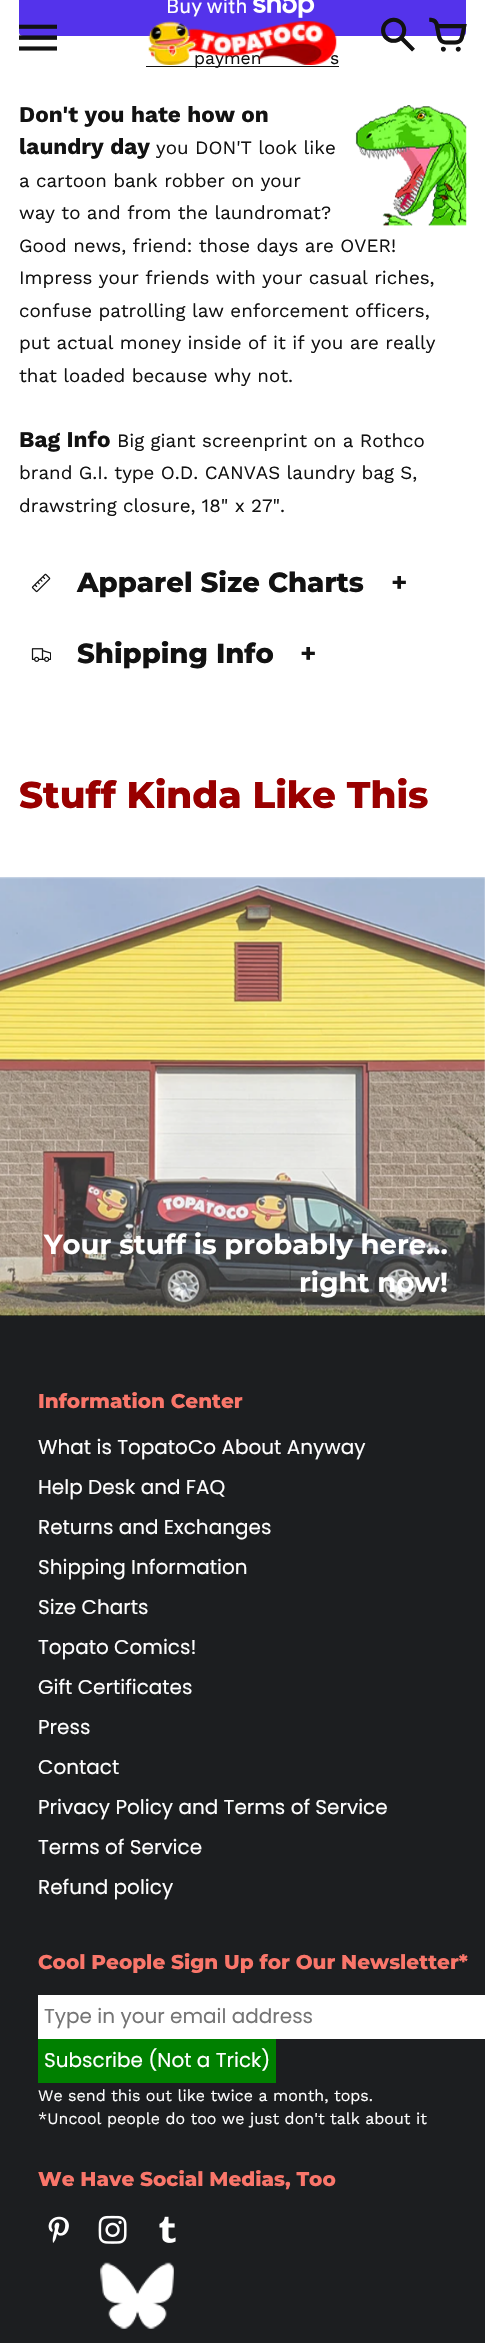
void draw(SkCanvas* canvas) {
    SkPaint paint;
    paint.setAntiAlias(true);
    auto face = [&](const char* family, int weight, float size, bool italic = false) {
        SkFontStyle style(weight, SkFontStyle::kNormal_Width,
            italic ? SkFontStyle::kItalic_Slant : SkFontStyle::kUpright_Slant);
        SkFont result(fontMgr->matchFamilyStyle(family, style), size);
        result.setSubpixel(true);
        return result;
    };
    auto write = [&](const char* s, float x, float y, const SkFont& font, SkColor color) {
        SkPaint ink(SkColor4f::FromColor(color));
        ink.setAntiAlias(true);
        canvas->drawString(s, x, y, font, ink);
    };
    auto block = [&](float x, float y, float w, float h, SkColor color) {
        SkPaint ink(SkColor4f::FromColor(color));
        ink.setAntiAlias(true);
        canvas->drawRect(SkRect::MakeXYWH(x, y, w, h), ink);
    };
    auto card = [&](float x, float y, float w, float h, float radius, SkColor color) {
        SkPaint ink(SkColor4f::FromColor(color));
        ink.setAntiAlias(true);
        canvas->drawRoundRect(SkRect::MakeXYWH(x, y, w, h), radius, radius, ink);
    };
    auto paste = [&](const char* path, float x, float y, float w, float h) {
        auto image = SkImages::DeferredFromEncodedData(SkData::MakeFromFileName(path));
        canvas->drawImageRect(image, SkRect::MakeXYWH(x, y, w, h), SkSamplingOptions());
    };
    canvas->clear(SK_ColorWHITE);
    card(19, -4, 447, 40, 4, SkColorSetRGB(84, 51, 235));
    auto kFont1 = face("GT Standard", 400, 20);
    write("Buy with", 166, 13, kFont1, SK_ColorWHITE);
    paste("pic1.png", 253, 0, 62, 18);
    block(146, 66, 193, 1, SkColorSetRGB(18, 18, 18));
    auto kFont2 = face("Work Sans", 400, 17.5f);
    write("paymen", 194, 64, kFont2, SkColorSetRGB(18, 18, 18));
    write("s", 330, 64, kFont2, SkColorSetRGB(18, 18, 18));
    auto kFont3 = face("Work Sans", 700, 22.5f);
    write("Don't you hate how on", 19, 122, kFont3, SkColorSetRGB(18, 18, 18));
    paste("pic2.png", 355, 105, 112, 121);
    write("laundry day", 19, 154, kFont3, SkColorSetRGB(18, 18, 18));
    auto kFont4 = face("Work Sans", 400, 18.75f);
    write("you DON'T look like", 156, 154, kFont4, SkColorSetRGB(18, 18, 18));
    write("a cartoon bank robber on your", 19, 187, kFont4, SkColorSetRGB(18, 18, 18));
    write("way to and from the laundromat?", 19, 219, kFont4, SkColorSetRGB(18, 18, 18));
    write("Good news, friend: those days are OVER!", 19, 252, kFont4, SkColorSetRGB(18, 18, 18));
    write("Impress your friends with your casual riches,", 19, 284, kFont4, SkColorSetRGB(18, 18, 18));
    write("confuse patrolling law enforcement officers,", 19, 317, kFont4, SkColorSetRGB(18, 18, 18));
    write("put actual money inside of it if you are really", 19, 349, kFont4, SkColorSetRGB(18, 18, 18));
    write("that loaded because why not.", 19, 382, kFont4, SkColorSetRGB(18, 18, 18));
    write("Bag Info", 19, 447, kFont3, SkColorSetRGB(18, 18, 18));
    write("Big giant screenprint on a Rothco", 117, 447, kFont4, SkColorSetRGB(18, 18, 18));
    write("brand G.I. type O.D. CANVAS laundry bag S,", 19, 479, kFont4, SkColorSetRGB(18, 18, 18));
    write("drawstring closure, 18\" x 27\".", 19, 512, kFont4, SkColorSetRGB(18, 18, 18));
    paste("pic3.png", 31, 573, 20, 20);
    auto kFont5 = face("Montserrat", 800, 27.5f);
    write("Apparel Size Charts", 77, 592, kFont5, SkColorSetRGB(18, 18, 18));
    auto kFont6 = face("Montserrat", 700, 27.5f);
    write("+", 391, 592, kFont6, SkColorSetRGB(18, 18, 18));
    paste("pic4.png", 31, 648, 20, 14);
    write("Shipping Info", 77, 663, kFont5, SkColorSetRGB(18, 18, 18));
    write("+", 300, 663, kFont6, SkColorSetRGB(18, 18, 18));
    auto kFont7 = face("Montserrat", 800, 37.25f);
    write("Stuff Kinda Like This", 19, 808, kFont7, SkColorSetRGB(153, 0, 0));
    block(0, 1315, 485, 1028, SkColorSetRGB(28, 30, 32));
    paste("pic5.png", 0, 877, 485, 439);
    write("Your stuff is probably here...", 44, 1254, kFont6, SK_ColorWHITE);
    write("right now!", 299, 1292, kFont6, SK_ColorWHITE);
    auto kFont8 = face("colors", 400, 38);
    write("1", 19, 59, kFont8, SkColorSetRGB(18, 18, 18));
    paste("pic6.png", 148, 21, 189, 44);
    write("2", 379, 56, kFont8, SkColorSetRGB(18, 18, 18));
    write("3", 429, 56, kFont8, SkColorSetRGB(18, 18, 18));
    auto kFont9 = face("Montserrat", 800, 20);
    write("Information Center", 38, 1408, kFont9, SkColorSetRGB(250, 118, 106));
    auto kFont10 = face("Poppins", 400, 20);
    write("What is TopatoCo About Anyway", 38, 1454, kFont10, SK_ColorWHITE);
    write("Help Desk and FAQ", 38, 1494, kFont10, SK_ColorWHITE);
    write("Returns and Exchanges", 38, 1534, kFont10, SK_ColorWHITE);
    write("Shipping Information", 38, 1574, kFont10, SK_ColorWHITE);
    write("Size Charts", 38, 1614, kFont10, SK_ColorWHITE);
    write("Topato Comics!", 38, 1654, kFont10, SK_ColorWHITE);
    write("Gift Certificates", 38, 1694, kFont10, SK_ColorWHITE);
    write("Press", 38, 1734, kFont10, SK_ColorWHITE);
    write("Contact", 38, 1774, kFont10, SK_ColorWHITE);
    write("Privacy Policy and Terms of Service", 38, 1814, kFont10, SK_ColorWHITE);
    write("Terms of Service", 38, 1854, kFont10, SK_ColorWHITE);
    write("Refund policy", 38, 1894, kFont10, SK_ColorWHITE);
    write("Cool People Sign Up for Our Newsletter*", 38, 1969, kFont9, SkColorSetRGB(250, 118, 106));
    block(38, 1995, 447, 44, SK_ColorWHITE);
    write("Type in your email address", 44, 2023, kFont10, SkColorSetRGB(117, 117, 117));
    block(38, 2039, 238, 44, SkColorSetRGB(0, 128, 0));
    write("Subscribe (Not a Trick)", 44, 2067, kFont10, SK_ColorWHITE);
    auto kFont11 = face("Work Sans", 400, 16);
    write("We send this out like twice a month, tops.", 38, 2101, kFont11, SK_ColorWHITE);
    write("*Uncool people do too we just don't talk about it", 38, 2124, kFont11, SK_ColorWHITE);
    write("We Have Social Medias, Too", 38, 2186, kFont9, SkColorSetRGB(250, 118, 106));
    paste("pic7.png", 48, 2216, 21, 27);
    paste("pic8.png", 98, 2215, 29, 29);
    paste("pic9.png", 159, 2216, 17, 27);
    paste("pic10.png", 100, 2262, 74, 67);
}
